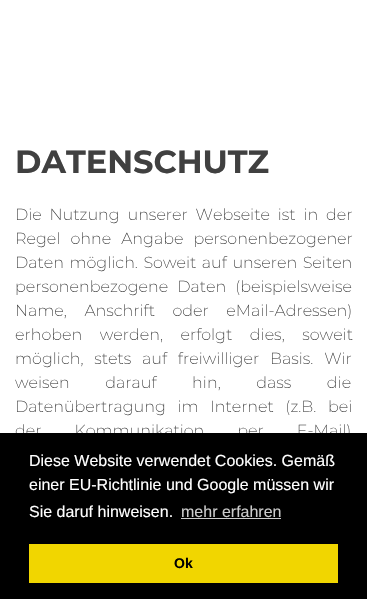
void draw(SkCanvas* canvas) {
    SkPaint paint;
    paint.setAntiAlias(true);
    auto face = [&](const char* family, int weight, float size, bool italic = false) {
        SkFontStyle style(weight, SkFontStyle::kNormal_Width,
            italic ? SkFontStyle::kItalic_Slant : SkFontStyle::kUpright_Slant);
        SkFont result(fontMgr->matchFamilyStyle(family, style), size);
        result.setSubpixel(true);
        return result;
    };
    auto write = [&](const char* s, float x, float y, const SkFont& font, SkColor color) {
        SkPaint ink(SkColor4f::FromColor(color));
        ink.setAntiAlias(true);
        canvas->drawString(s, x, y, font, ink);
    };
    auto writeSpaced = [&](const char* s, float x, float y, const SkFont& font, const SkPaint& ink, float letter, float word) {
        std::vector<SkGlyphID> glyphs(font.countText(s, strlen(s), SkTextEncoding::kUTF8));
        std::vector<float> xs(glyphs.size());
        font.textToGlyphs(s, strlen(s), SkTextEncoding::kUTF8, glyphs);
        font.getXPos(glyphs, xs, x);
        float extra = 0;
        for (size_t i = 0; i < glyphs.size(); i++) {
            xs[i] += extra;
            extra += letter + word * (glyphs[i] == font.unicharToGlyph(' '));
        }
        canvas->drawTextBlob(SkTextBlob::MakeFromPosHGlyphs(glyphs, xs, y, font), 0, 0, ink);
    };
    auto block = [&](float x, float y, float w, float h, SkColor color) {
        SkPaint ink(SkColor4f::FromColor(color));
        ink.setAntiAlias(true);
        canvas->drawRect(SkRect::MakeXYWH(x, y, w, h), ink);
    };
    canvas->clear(SK_ColorWHITE);
    auto kFont1 = face("Montserrat", 700, 32);
    write("DATENSCHUTZ", 15, 173, kFont1, SkColorSetRGB(64, 64, 64));
    auto kFont2 = face("Montserrat", 200, 16);
    paint.setColor(SkColorSetRGB(64, 64, 64));
    writeSpaced("Die Nutzung unserer Webseite ist in der", 15, 220, kFont2, paint, 0, 3.75f);
    writeSpaced("Regel ohne Angabe personenbezogener", 15, 244, kFont2, paint, 0, 6);
    writeSpaced("Daten möglich. Soweit auf unseren Seiten", 15, 268, kFont2, paint, 0, 1.5f);
    writeSpaced("personenbezogene Daten (beispielsweise", 15, 292, kFont2, paint, 0, 5);
    writeSpaced("Name, Anschrift oder eMail-Adressen)", 15, 316, kFont2, paint, 0, 13.5f);
    writeSpaced("erhoben werden, erfolgt dies, soweit", 15, 340, kFont2, paint, 0, 13.5f);
    writeSpaced("möglich, stets auf freiwilliger Basis. Wir", 15, 364, kFont2, paint, 0, 6.75f);
    writeSpaced("weisen darauf hin, dass die", 15, 388, kFont2, paint, 0, 31.5f);
    writeSpaced("Datenübertragung im Internet (z.B. bei", 15, 412, kFont2, paint, 0, 7.5f);
    writeSpaced("der Kommunikation per E-Mail)", 15, 436, kFont2, paint, 0, 29);
    block(0, 433, 367, 166, SK_ColorBLACK);
    auto kFont3 = face("Liberation Sans", 400, 16);
    write("Diese Website verwendet Cookies. Gemäß", 29, 466, kFont3, SK_ColorWHITE);
    write("einer EU-Richtlinie und Google müssen wir", 29, 490, kFont3, SK_ColorWHITE);
    write("Sie daruf hinweisen.", 29, 517, kFont3, SK_ColorWHITE);
    write("mehr erfahren", 181, 517, kFont3, SkColorSetRGB(204, 204, 204));
    block(181, 518, 100, 1, SkColorSetRGB(204, 204, 204));
    block(29, 544, 309, 39, SkColorSetRGB(241, 214, 0));
    auto kFont4 = face("Liberation Sans", 700, 14);
    write("Ok", 174, 568, kFont4, SK_ColorBLACK);
}
